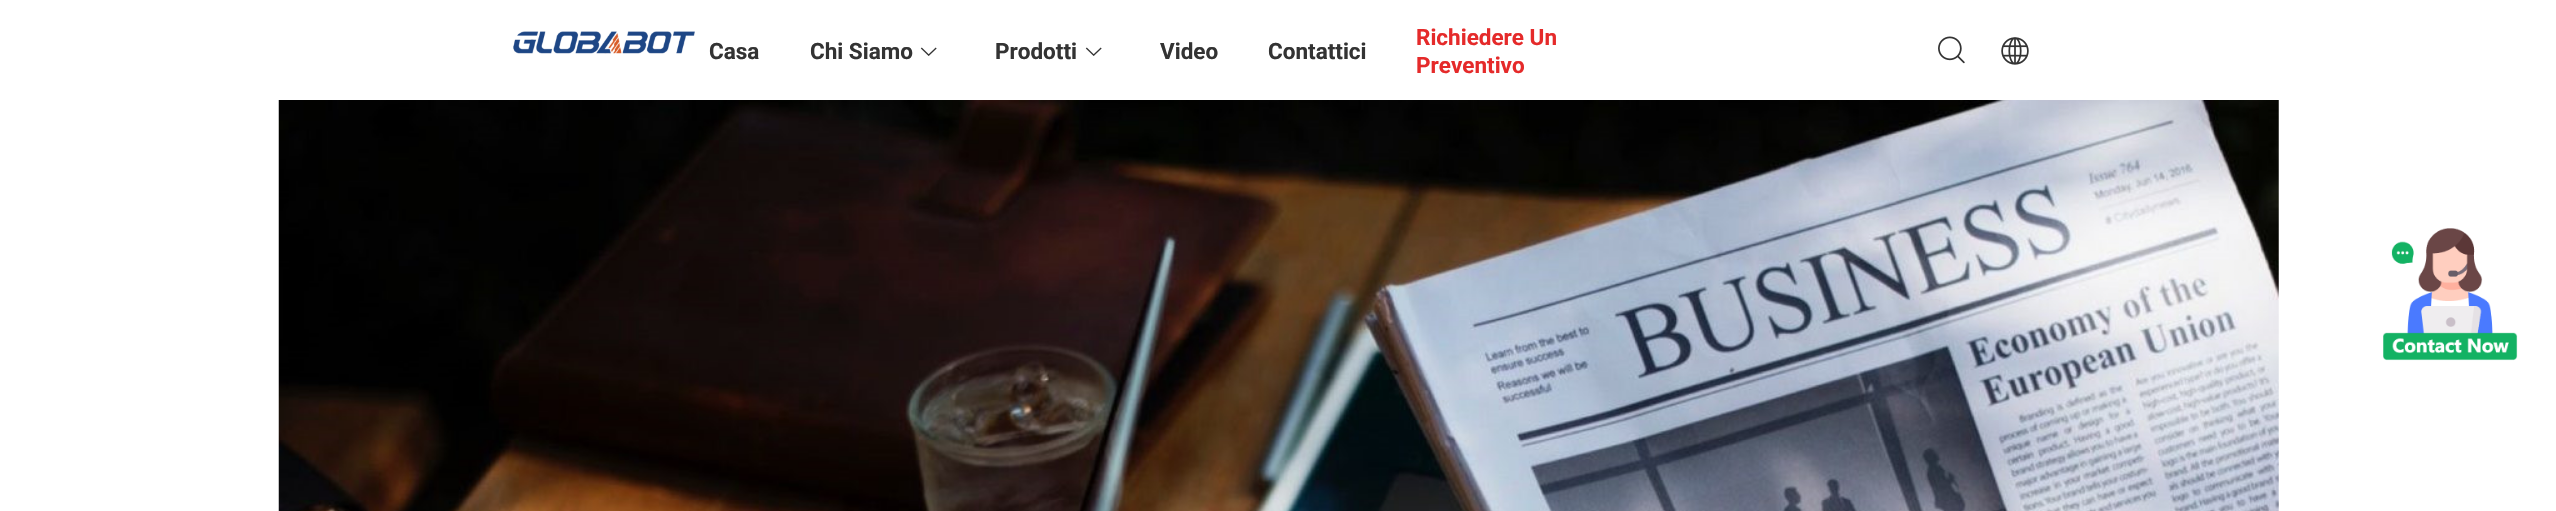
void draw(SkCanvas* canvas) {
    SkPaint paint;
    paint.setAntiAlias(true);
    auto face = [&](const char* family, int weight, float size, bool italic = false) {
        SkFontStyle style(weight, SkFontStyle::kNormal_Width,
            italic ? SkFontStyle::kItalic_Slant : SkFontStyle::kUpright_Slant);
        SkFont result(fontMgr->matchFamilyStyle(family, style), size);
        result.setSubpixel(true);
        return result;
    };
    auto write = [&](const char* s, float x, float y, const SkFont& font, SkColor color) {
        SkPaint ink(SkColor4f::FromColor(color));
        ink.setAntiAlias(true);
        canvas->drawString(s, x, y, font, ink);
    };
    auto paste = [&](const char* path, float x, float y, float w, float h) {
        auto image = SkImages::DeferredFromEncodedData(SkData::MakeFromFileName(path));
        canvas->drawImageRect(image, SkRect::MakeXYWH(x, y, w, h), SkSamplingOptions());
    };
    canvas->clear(SK_ColorWHITE);
    paste("pic1.png", 513, 31, 182, 23);
    auto kFont1 = face("Roboto", 700, 22.5f);
    write("Casa", 709, 59, kFont1, SkColorSetRGB(51, 51, 51));
    write("Chi Siamo", 810, 59, kFont1, SkColorSetRGB(51, 51, 51));
    paste("pic2.png", 920, 47, 17, 9);
    write("Prodotti", 995, 59, kFont1, SkColorSetRGB(51, 51, 51));
    paste("pic2.png", 1085, 47, 17, 9);
    write("Video", 1160, 59, kFont1, SkColorSetRGB(51, 51, 51));
    write("Contattici", 1268, 59, kFont1, SkColorSetRGB(51, 51, 51));
    write("Richiedere Un", 1416, 45, kFont1, SkColorSetRGB(229, 42, 42));
    write("Preventivo", 1416, 73, kFont1, SkColorSetRGB(229, 42, 42));
    paste("pic3.png", 1938, 36, 27, 28);
    paste("pic4.png", 2001, 37, 28, 28);
    paste("pic5.png", 278, 100, 2001, 411);
    paste("pic6.png", 2383, 228, 135, 133);
}
